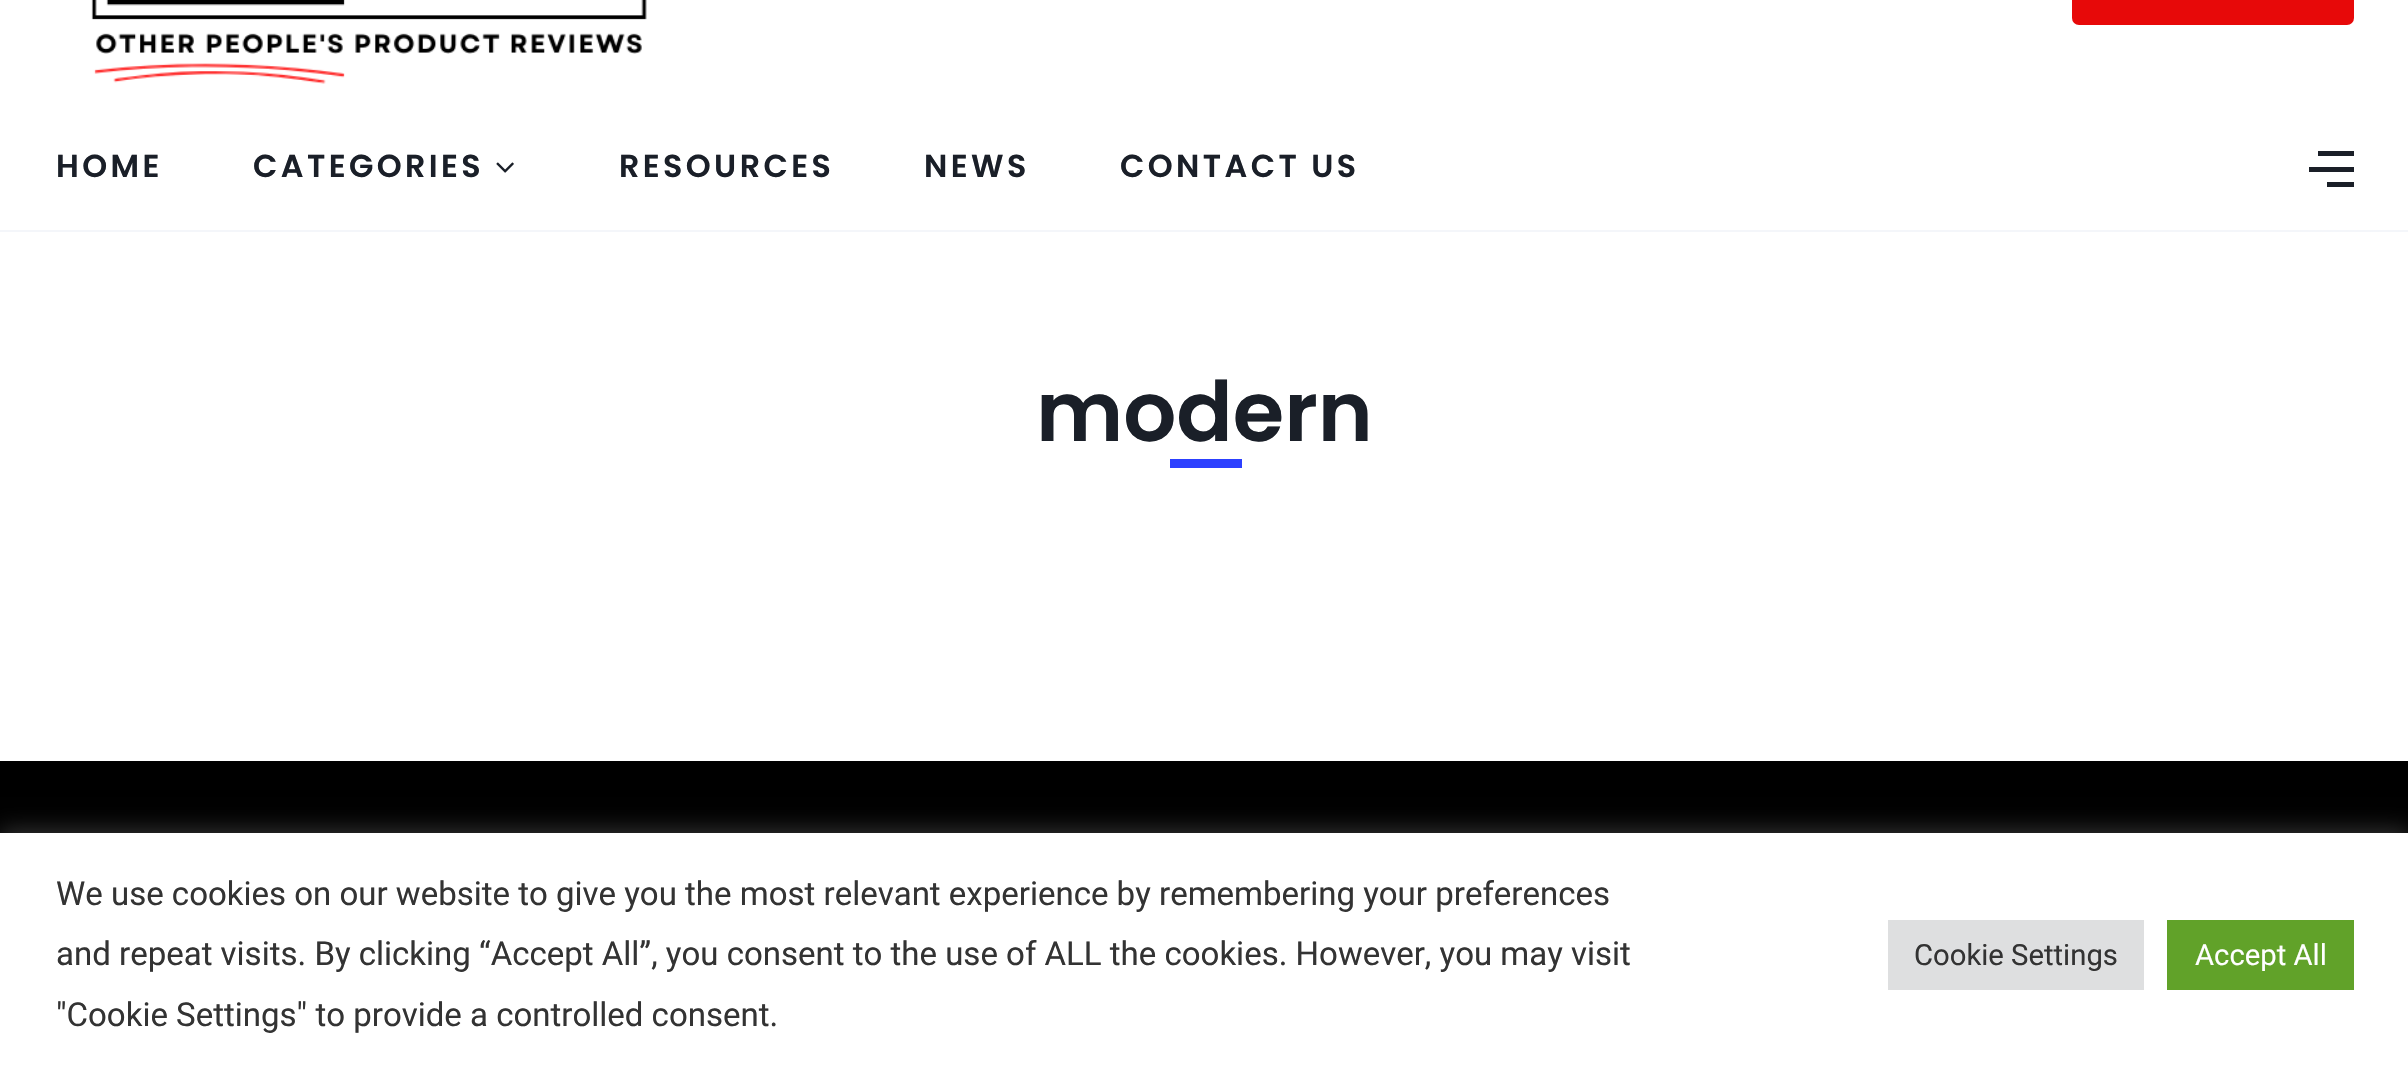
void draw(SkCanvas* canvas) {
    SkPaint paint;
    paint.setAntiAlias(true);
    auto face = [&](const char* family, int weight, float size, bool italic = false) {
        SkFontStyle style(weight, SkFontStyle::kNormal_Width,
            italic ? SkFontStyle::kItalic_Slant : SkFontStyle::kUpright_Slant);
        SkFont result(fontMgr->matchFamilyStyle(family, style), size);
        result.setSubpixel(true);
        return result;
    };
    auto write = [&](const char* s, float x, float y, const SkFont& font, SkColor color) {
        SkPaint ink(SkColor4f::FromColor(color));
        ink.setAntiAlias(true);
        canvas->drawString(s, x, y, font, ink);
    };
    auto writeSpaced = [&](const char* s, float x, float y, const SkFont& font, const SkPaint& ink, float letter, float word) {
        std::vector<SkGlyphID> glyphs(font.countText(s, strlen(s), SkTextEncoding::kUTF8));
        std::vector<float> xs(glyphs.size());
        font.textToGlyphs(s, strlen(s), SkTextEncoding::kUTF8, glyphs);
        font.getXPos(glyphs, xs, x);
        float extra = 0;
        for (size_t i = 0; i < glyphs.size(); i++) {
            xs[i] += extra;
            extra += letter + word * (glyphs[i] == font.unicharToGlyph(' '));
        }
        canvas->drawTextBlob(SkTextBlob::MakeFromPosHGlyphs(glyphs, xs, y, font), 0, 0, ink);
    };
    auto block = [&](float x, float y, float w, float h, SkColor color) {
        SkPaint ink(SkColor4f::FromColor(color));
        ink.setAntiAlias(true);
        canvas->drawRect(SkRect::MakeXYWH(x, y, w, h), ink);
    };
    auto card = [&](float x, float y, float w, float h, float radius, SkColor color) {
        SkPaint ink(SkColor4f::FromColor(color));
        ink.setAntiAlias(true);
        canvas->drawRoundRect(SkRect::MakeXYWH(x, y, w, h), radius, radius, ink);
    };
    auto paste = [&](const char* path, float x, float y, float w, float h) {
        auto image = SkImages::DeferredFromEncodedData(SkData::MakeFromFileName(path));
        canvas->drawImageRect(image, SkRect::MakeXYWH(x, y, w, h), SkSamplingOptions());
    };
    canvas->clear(SK_ColorWHITE);
    paste("pic1.png", 91, 0, 556, 84);
    card(2072, -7, 282, 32, 7, SkColorSetRGB(231, 9, 9));
    block(0, 230, 2408, 2, SkColorSetRGB(244, 246, 250));
    auto kFont1 = face("Poppins", 600, 31.75f);
    paint.setColor(SkColorSetRGB(26, 31, 40));
    writeSpaced("HOME", 56, 177, kFont1, paint, 3.4f, 0);
    writeSpaced("CATEGORIES", 253, 177, kFont1, paint, 3.4f, 0);
    paste("pic2.png", 496, 162, 18, 11);
    writeSpaced("RESOURCES", 619, 177, kFont1, paint, 3.4f, 0);
    writeSpaced("NEWS", 924, 177, kFont1, paint, 3.4f, 0);
    writeSpaced("CONTACT US", 1120, 177, kFont1, paint, 3.4f, 0);
    block(2318, 151, 36, 5, SkColorSetRGB(26, 31, 40));
    block(2309, 167, 45, 5, SkColorSetRGB(26, 31, 40));
    block(2327, 182, 27, 5, SkColorSetRGB(26, 31, 40));
    auto kFont2 = face("Poppins", 600, 83.25f);
    write("modern", 1036, 441, kFont2, SkColorSetRGB(26, 31, 40));
    block(1170, 459, 72, 9, SkColorSetRGB(44, 64, 255));
    block(0, 761, 2408, 72, SK_ColorBLACK);
    paint.setColor(SkColorSetARGB(77, 172, 171, 171));
    paint.setMaskFilter(SkMaskFilter::MakeBlur(kNormal_SkBlurStyle, 11));
    canvas->drawRect(SkRect::MakeXYWH(0, 830, 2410, 246), paint);
    paint.setMaskFilter(nullptr);
    block(0, 833, 2408, 243, SK_ColorWHITE);
    auto kFont3 = face("Roboto", 400, 33);
    write("We use cookies on our website to give you the most relevant experience by remembering your preferences", 56, 905, kFont3, SkColorSetRGB(51, 51, 51));
    write("and repeat visits. By clicking “Accept All”, you consent to the use of ALL the cookies. However, you may visit", 56, 965, kFont3, SkColorSetRGB(51, 51, 51));
    write("\"Cookie Settings\" to provide a controlled consent.", 56, 1026, kFont3, SkColorSetRGB(51, 51, 51));
    block(1888, 920, 256, 70, SkColorSetRGB(222, 223, 224));
    auto kFont4 = face("Roboto", 400, 29.25f);
    write("Cookie Settings", 1914, 965, kFont4, SkColorSetRGB(51, 51, 51));
    block(2167, 920, 187, 70, SkColorSetRGB(97, 162, 41));
    write("Accept All", 2195, 965, kFont4, SK_ColorWHITE);
}
